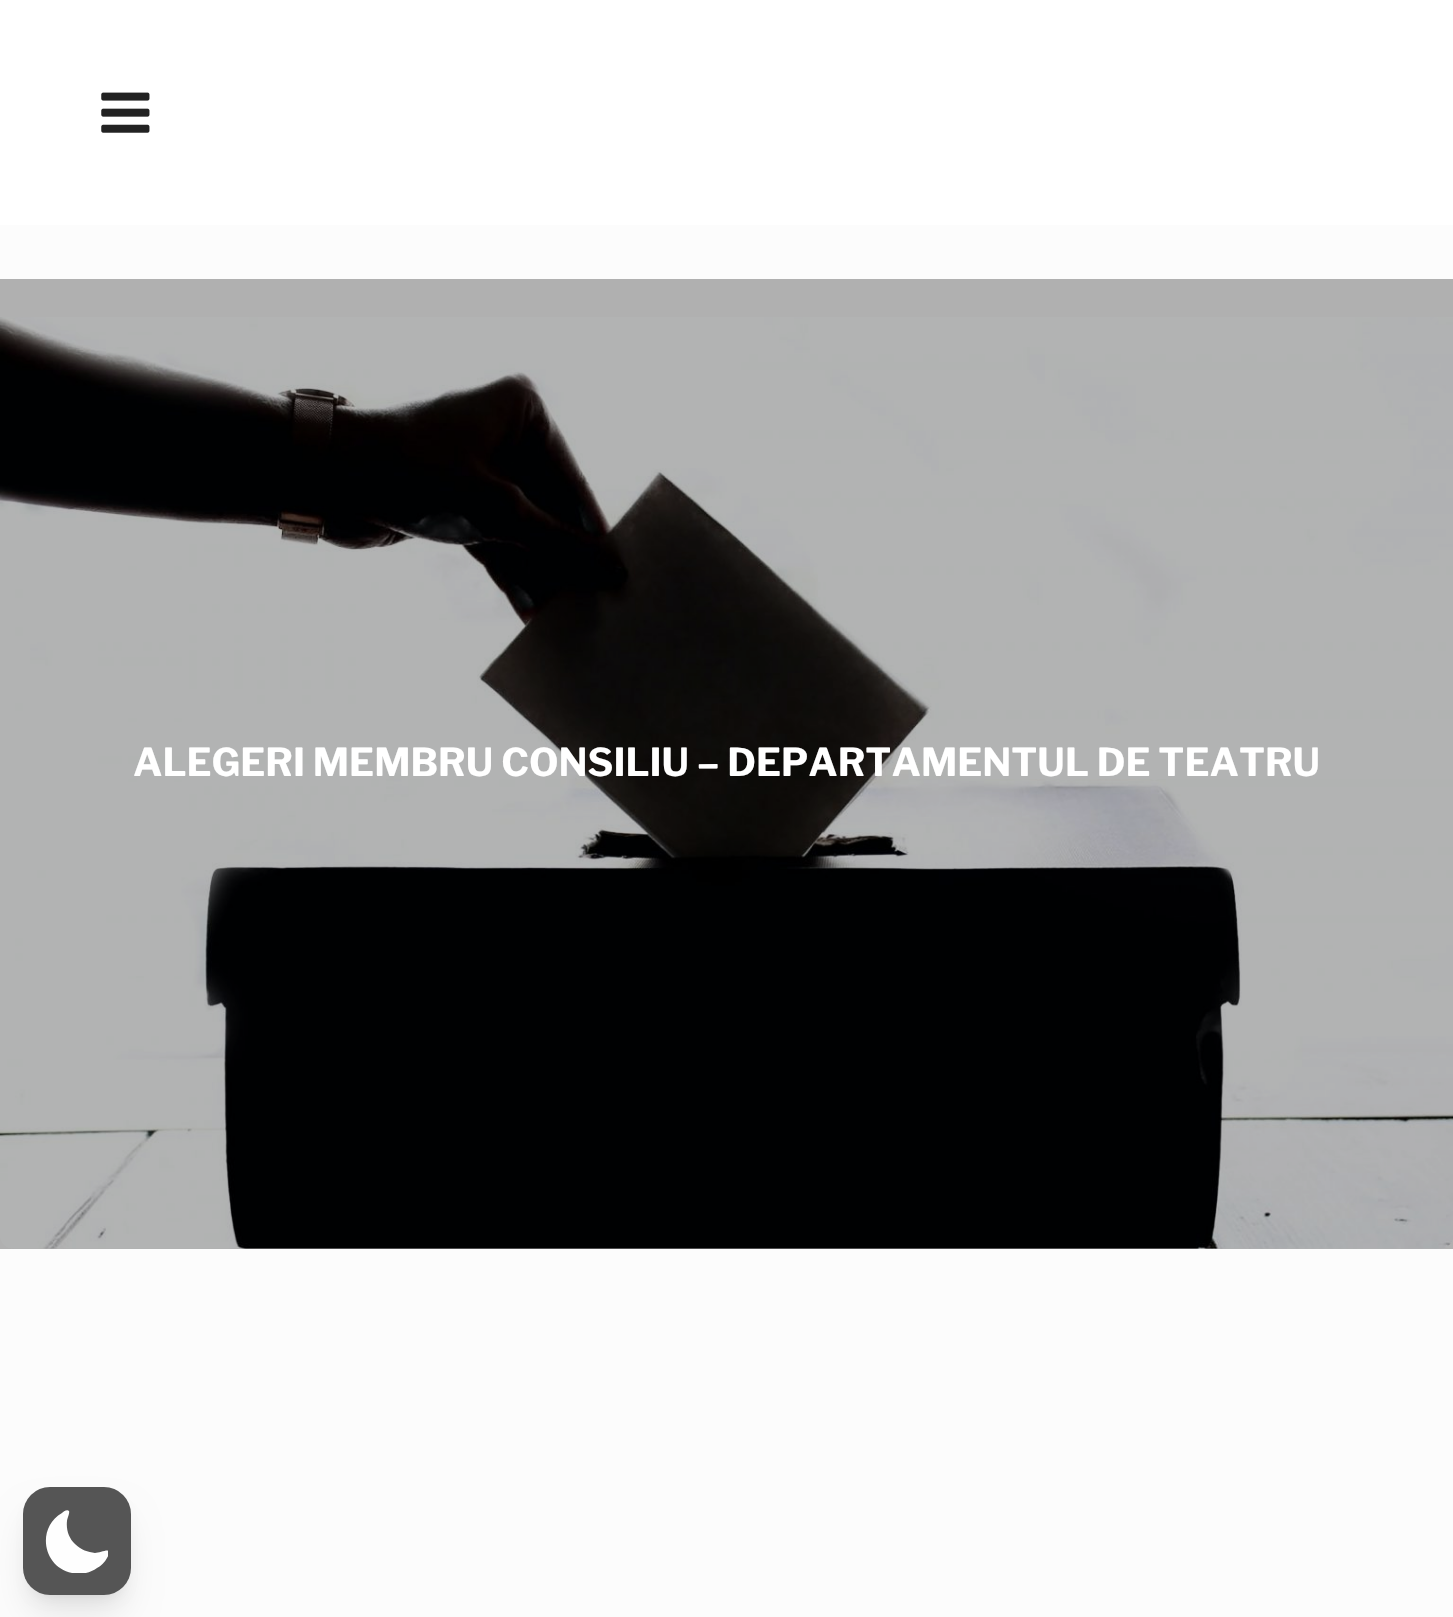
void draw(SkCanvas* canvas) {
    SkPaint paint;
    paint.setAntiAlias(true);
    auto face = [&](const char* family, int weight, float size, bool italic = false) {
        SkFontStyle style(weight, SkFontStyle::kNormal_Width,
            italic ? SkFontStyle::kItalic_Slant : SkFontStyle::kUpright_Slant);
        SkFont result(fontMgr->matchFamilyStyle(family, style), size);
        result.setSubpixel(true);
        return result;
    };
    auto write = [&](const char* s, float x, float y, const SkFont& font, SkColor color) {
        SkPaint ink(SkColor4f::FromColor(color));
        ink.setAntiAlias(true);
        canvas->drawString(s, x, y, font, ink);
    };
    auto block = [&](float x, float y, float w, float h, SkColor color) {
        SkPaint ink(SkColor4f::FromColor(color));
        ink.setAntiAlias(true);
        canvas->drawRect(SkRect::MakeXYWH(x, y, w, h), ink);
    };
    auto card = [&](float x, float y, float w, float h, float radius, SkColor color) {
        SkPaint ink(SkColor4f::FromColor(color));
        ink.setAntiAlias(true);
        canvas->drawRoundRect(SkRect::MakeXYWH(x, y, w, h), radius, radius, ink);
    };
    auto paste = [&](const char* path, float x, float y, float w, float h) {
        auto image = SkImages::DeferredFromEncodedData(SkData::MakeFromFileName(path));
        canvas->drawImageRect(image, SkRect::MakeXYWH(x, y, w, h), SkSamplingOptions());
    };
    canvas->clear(SkColorSetRGB(252, 252, 252));
    block(0, 279, 1453, 970, SkColorSetRGB(176, 176, 176));
    block(0, 0, 1453, 225, SK_ColorWHITE);
    paste("pic1.png", 101, 92, 49, 41);
    paste("pic2.png", 0, 317, 1453, 932);
    auto kFont1 = face("Libre Franklin", 700, 38.25f);
    write("ALEGERI MEMBRU CONSILIU – DEPARTAMENTUL DE TEATRU", 133, 776, kFont1, SK_ColorWHITE);
    paint.setColor(SkColorSetARGB(26, 0, 0, 0));
    paint.setMaskFilter(SkMaskFilter::MakeBlur(kNormal_SkBlurStyle, 7));
    canvas->drawRoundRect(SkRect::MakeXYWH(32, 1505, 90, 90), 18, 18, paint);
    paint.setMaskFilter(nullptr);
    paint.setMaskFilter(SkMaskFilter::MakeBlur(kNormal_SkBlurStyle, 17));
    canvas->drawRoundRect(SkRect::MakeXYWH(29, 1517, 95, 94), 20, 20, paint);
    paint.setMaskFilter(nullptr);
    card(23, 1487, 108, 108, 27, SkColorSetRGB(85, 85, 85));
    canvas->save();
    canvas->clipRect(SkRect::MakeXYWH(45, 1510, 63, 63));
    paint.setColor(SkColorSetRGB(254, 254, 254));
    canvas->drawPath(SkPathBuilder(SkPathFillType::kEvenOdd).moveTo(69, 1511).cubicTo(70, 1513, 67, 1519, 67, 1521).cubicTo(66, 1530, 69, 1538, 75, 1544).cubicTo(81, 1550, 88, 1552, 95, 1553).cubicTo(101, 1553, 115, 1545, 107, 1558).cubicTo(105, 1562, 101, 1566, 97, 1568).cubicTo(90, 1573, 81, 1575, 72, 1573).cubicTo(43, 1567, 36, 1528, 62, 1513).cubicTo(63, 1512, 67, 1509, 69, 1511).close().detach(), paint);
    canvas->restore();
}
